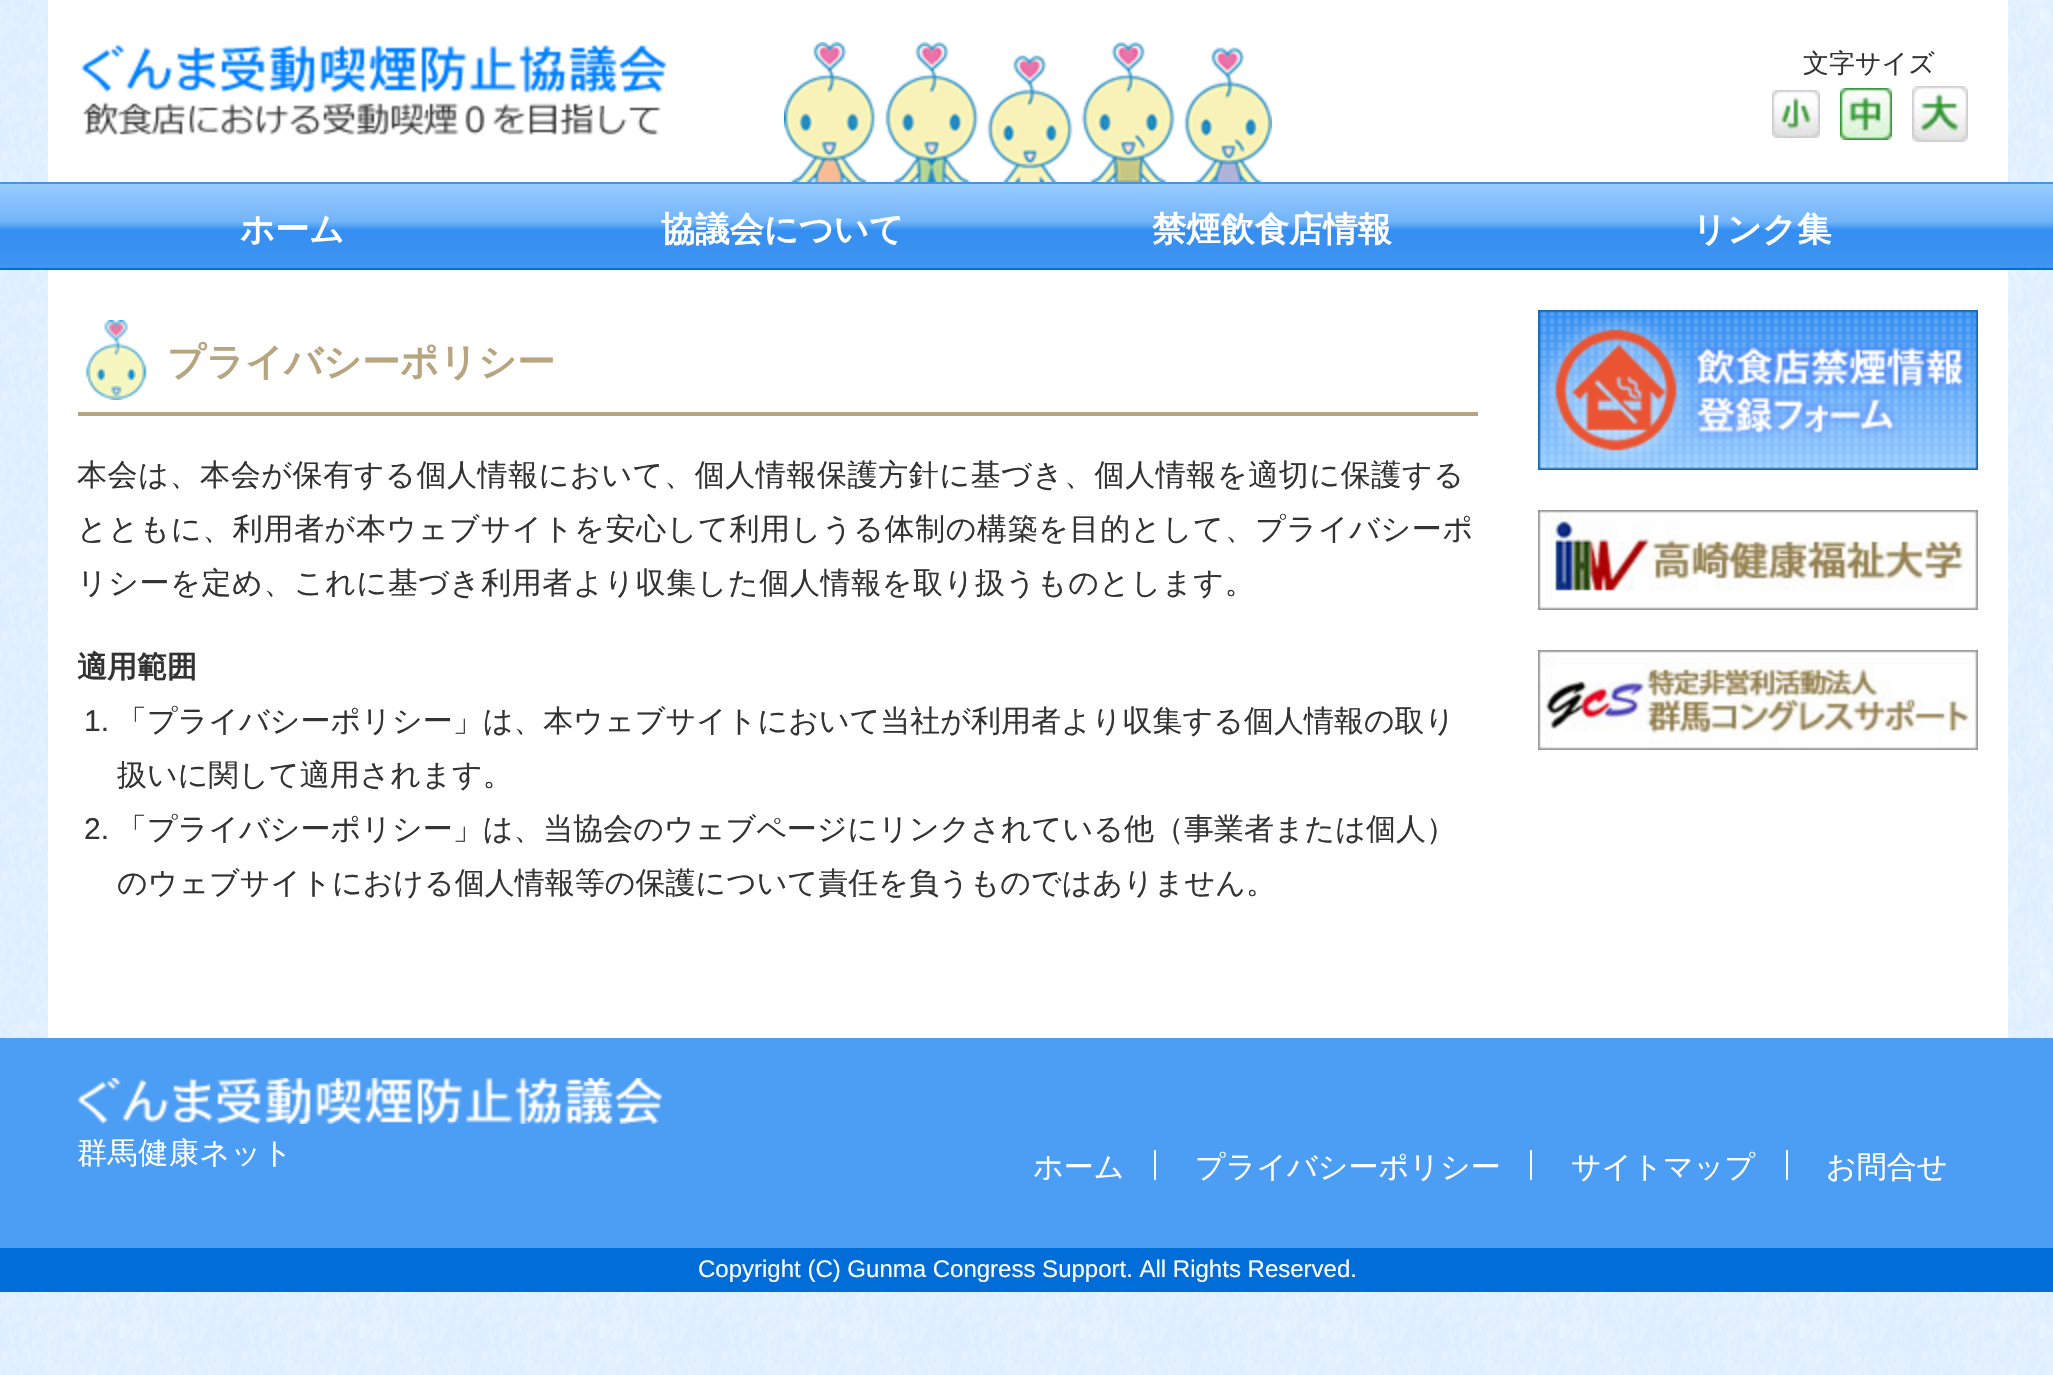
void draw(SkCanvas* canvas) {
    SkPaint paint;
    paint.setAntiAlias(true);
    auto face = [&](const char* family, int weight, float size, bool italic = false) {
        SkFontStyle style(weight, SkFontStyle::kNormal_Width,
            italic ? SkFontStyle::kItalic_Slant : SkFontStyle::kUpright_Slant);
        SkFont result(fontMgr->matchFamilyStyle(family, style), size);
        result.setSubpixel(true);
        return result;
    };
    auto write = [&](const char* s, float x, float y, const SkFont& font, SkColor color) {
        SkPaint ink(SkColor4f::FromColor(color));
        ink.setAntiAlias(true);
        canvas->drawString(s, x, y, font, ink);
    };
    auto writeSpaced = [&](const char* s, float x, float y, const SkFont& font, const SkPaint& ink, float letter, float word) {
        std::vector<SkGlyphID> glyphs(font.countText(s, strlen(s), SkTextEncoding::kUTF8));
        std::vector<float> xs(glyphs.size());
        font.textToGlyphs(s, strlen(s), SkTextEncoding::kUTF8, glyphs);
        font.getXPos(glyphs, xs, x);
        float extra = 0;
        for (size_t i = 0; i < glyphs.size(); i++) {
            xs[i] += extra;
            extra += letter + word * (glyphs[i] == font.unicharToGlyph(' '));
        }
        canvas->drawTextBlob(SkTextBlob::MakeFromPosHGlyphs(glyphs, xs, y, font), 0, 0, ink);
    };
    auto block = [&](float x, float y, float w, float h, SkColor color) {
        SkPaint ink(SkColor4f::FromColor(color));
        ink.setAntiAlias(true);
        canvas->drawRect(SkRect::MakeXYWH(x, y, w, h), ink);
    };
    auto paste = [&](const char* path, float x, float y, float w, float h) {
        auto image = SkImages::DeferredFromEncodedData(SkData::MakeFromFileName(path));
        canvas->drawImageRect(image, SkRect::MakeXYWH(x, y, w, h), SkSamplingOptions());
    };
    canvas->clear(SK_ColorWHITE);
    paste("pic1.png", 0, 0, 2053, 1375);
    block(48, 0, 1960, 182, SK_ColorWHITE);
    paste("pic2.png", 784, 42, 488, 140);
    paste("pic3.png", 81, 43, 585, 94);
    auto kFont1 = face("WenQuanYi Zen Hei", 500, 26);
    write("文字サイズ", 1803, 72, kFont1, SkColorSetRGB(51, 51, 51));
    paste("pic4.png", 1772, 90, 48, 48);
    paste("pic5.png", 1840, 88, 52, 52);
    paste("pic6.png", 1912, 86, 56, 56);
    {
        const SkColor colors[] = {SkColorSetRGB(153, 204, 255), SkColorSetRGB(114, 180, 249), SkColorSetRGB(52, 142, 241), SkColorSetRGB(64, 149, 242)};
        const float stops[] = {0, 0.45f, 0.55f, 1};
        const SkPoint ends[] = {{1027, 100}, {1027, 184}};
        paint.setShader(SkGradientShader::MakeLinear(ends, colors, stops, 4, SkTileMode::kClamp));
        paint.setAlpha(255);
    }
    canvas->drawRect(SkRect::MakeXYWH(0, 182, 2053, 2), paint);
    {
        const SkColor colors[] = {SkColorSetRGB(153, 204, 255), SkColorSetRGB(114, 180, 249), SkColorSetRGB(52, 142, 241), SkColorSetRGB(64, 149, 242)};
        const float stops[] = {0, 0.45f, 0.55f, 1};
        const SkPoint ends[] = {{1027, 184}, {1027, 268}};
        paint.setShader(SkGradientShader::MakeLinear(ends, colors, stops, 4, SkTileMode::kClamp));
        paint.setAlpha(255);
    }
    canvas->drawRect(SkRect::MakeXYWH(0, 184, 2053, 84), paint);
    block(0, 268, 2053, 2, SkColorSetRGB(0, 109, 217));
    auto kFont2 = face("WenQuanYi Zen Hei", 700, 34.25f);
    write("ホーム", 240, 241, kFont2, SK_ColorWHITE);
    write("協議会について", 661, 241, kFont2, SK_ColorWHITE);
    write("禁煙飲食店情報", 1152, 241, kFont2, SK_ColorWHITE);
    write("リンク集", 1692, 241, kFont2, SK_ColorWHITE);
    block(48, 270, 1960, 768, SK_ColorWHITE);
    paste("pic7.png", 85, 320, 62, 80);
    block(78, 412, 1400, 4, SkColorSetRGB(183, 165, 127));
    auto kFont3 = face("WenQuanYi Zen Hei", 700, 38.1f);
    write("プライバシーポリシー", 167, 375, kFont3, SkColorSetRGB(183, 165, 127));
    auto kFont4 = face("WenQuanYi Zen Hei", 500, 30);
    paint.setShader(nullptr);
    paint.setColor(SkColorSetRGB(51, 51, 51));
    writeSpaced("本会は、本会が保有する個人情報において、個人情報保護方針に基づき、個人情報を適切に保護する", 77, 485, kFont4, paint, 0.6f, 0);
    writeSpaced("とともに、利用者が本ウェブサイトを安心して利用しうる体制の構築を目的として、プライバシーポ", 77, 539, kFont4, paint, 0.6f, 0);
    writeSpaced("リシーを定め、これに基づき利用者より収集した個人情報を取り扱うものとします。", 77, 593, kFont4, paint, 0.6f, 0);
    auto kFont5 = face("WenQuanYi Zen Hei", 700, 30);
    write("適用範囲", 77, 677, kFont5, SkColorSetRGB(51, 51, 51));
    auto kFont6 = face("Liberation Sans", 400, 30);
    write("1.", 84, 731, kFont6, SkColorSetRGB(51, 51, 51));
    write("「プライバシーポリシー」は、本ウェブサイトにおいて当社が利用者より収集する個人情報の取り", 117, 731, kFont4, SkColorSetRGB(51, 51, 51));
    write("扱いに関して適用されます。", 117, 785, kFont4, SkColorSetRGB(51, 51, 51));
    write("2.", 84, 839, kFont6, SkColorSetRGB(51, 51, 51));
    write("「プライバシーポリシー」は、当協会のウェブページにリンクされている他（事業者または個人）", 117, 839, kFont4, SkColorSetRGB(51, 51, 51));
    write("のウェブサイトにおける個人情報等の保護について責任を負うものではありません。", 117, 893, kFont4, SkColorSetRGB(51, 51, 51));
    paste("pic8.png", 1538, 310, 440, 160);
    paste("pic9.png", 1538, 510, 440, 100);
    paste("pic10.png", 1538, 650, 440, 100);
    block(0, 1038, 2053, 210, SkColorSetRGB(76, 157, 244));
    paste("pic11.png", 78, 1078, 584, 46);
    paint.setColor(SK_ColorWHITE);
    writeSpaced("群馬健康ネット", 77, 1163, kFont4, paint, 0.6f, 0);
    block(1154, 1150, 2, 30, SK_ColorWHITE);
    write("ホーム", 1033, 1177, kFont4, SK_ColorWHITE);
    block(1530, 1150, 2, 30, SK_ColorWHITE);
    write("プライバシーポリシー", 1195, 1177, kFont4, SK_ColorWHITE);
    block(1786, 1150, 2, 30, SK_ColorWHITE);
    write("サイトマップ", 1571, 1177, kFont4, SK_ColorWHITE);
    write("お問合せ", 1826, 1177, kFont4, SK_ColorWHITE);
    block(0, 1248, 2053, 44, SkColorSetRGB(0, 109, 217));
    auto kFont7 = face("Liberation Sans", 400, 24);
    write("Copyright (C) Gunma Congress Support. All Rights Reserved.", 698, 1277, kFont7, SK_ColorWHITE);
}
